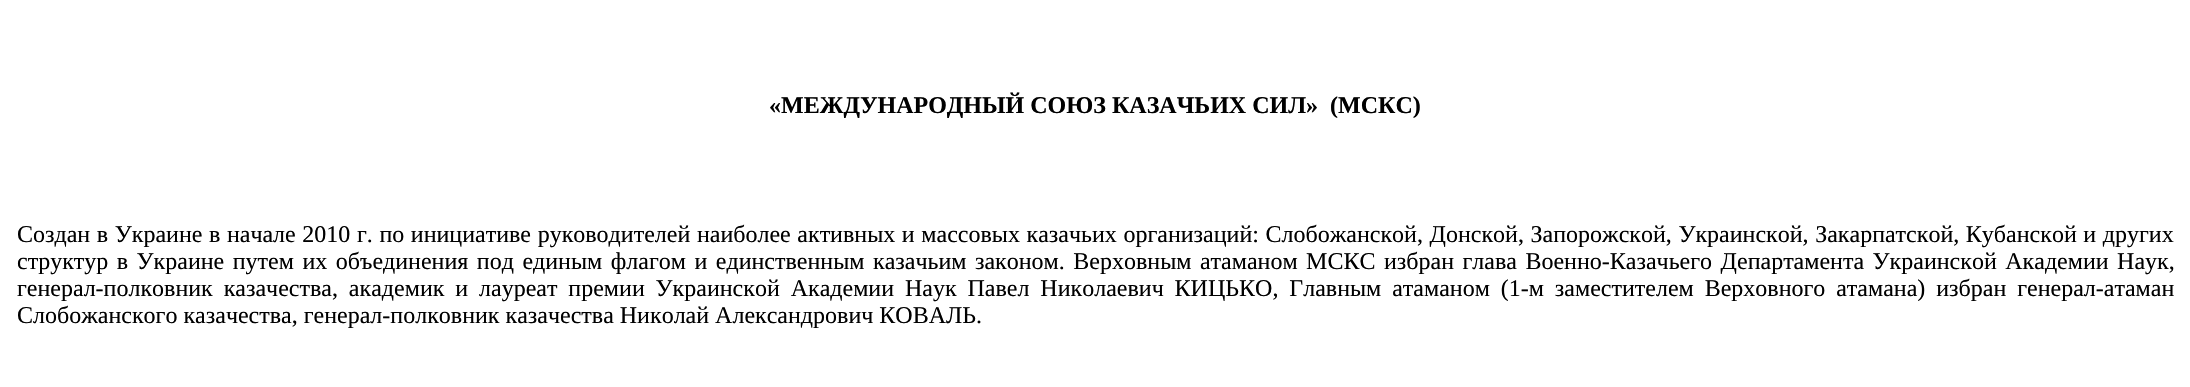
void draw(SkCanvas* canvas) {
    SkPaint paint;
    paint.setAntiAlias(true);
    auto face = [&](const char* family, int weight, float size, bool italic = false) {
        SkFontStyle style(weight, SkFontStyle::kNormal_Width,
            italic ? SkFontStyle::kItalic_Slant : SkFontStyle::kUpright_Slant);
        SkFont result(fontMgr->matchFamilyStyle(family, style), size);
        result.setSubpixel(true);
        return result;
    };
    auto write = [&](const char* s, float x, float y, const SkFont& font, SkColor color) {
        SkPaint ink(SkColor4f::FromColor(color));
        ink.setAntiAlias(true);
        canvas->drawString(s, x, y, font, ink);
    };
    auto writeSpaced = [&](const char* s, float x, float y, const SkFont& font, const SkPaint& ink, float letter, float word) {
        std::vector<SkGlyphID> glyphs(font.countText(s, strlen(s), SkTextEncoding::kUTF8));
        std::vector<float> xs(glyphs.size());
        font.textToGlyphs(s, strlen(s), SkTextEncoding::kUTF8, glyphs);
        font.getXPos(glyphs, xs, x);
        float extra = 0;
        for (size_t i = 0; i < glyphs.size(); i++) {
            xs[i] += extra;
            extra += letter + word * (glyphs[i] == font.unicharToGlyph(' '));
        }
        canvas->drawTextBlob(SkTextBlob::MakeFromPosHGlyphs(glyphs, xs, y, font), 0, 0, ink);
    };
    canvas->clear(SK_ColorWHITE);
    auto kFont1 = face("Liberation Serif", 700, 24);
    write("«МЕЖДУНАРОДНЫЙ СОЮЗ КАЗАЧЬИХ СИЛ»  (МСКС)", 769, 113, kFont1, SK_ColorBLACK);
    auto kFont2 = face("Liberation Serif", 400, 24);
    paint.setColor(SK_ColorBLACK);
    writeSpaced("Создан в Украине в начале 2010 г. по инициативе руководителей наиболее активных и массовых казачьих организаций: Слобожанской, Донской, Запорожской, Украинской, Закарпатской, Кубанской и других", 17, 242, kFont2, paint, 0, 0.6f);
    writeSpaced("структур в Украине путем их объединения под единым флагом и единственным казачьим законом. Верховным атаманом МСКС избран глава Военно-Казачьего Департамента Украинской Академии Наук,", 17, 269, kFont2, paint, 0, 2.5f);
    writeSpaced("генерал-полковник казачества, академик и лауреат премии Украинской Академии Наук Павел Николаевич КИЦЬКО, Главным атаманом (1-м заместителем Верховного атамана) избран генерал-атаман", 17, 296, kFont2, paint, 0, 4.9f);
    write("Слобожанского казачества, генерал-полковник казачества Николай Александрович КОВАЛЬ.", 17, 323, kFont2, SK_ColorBLACK);
}
